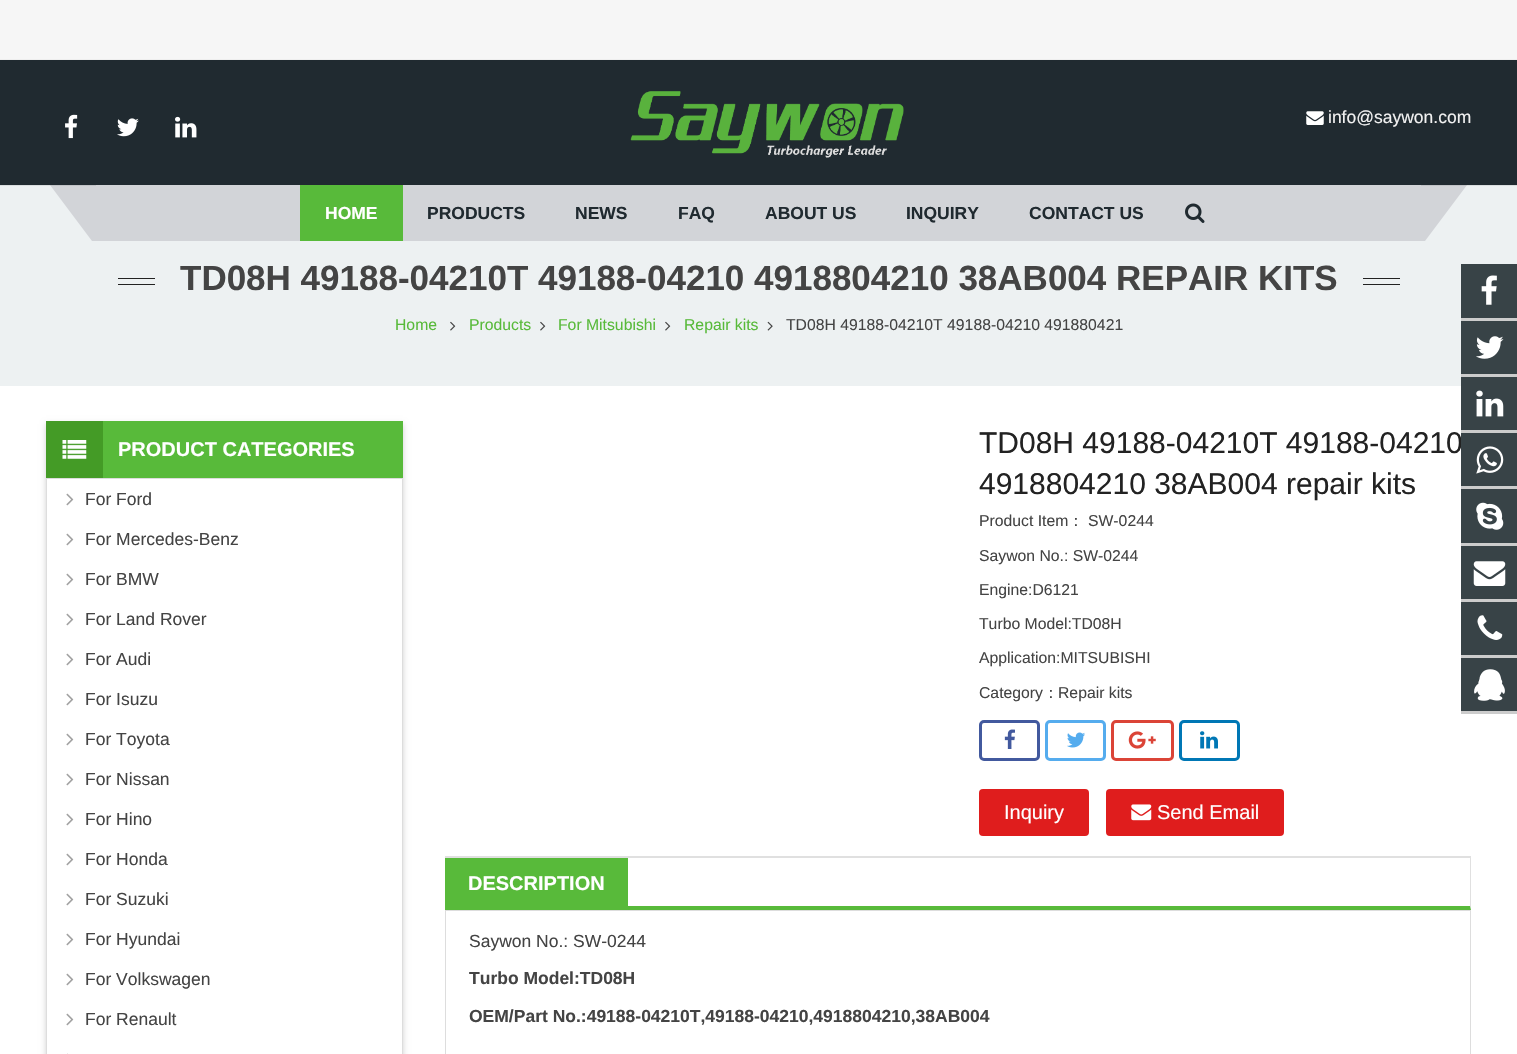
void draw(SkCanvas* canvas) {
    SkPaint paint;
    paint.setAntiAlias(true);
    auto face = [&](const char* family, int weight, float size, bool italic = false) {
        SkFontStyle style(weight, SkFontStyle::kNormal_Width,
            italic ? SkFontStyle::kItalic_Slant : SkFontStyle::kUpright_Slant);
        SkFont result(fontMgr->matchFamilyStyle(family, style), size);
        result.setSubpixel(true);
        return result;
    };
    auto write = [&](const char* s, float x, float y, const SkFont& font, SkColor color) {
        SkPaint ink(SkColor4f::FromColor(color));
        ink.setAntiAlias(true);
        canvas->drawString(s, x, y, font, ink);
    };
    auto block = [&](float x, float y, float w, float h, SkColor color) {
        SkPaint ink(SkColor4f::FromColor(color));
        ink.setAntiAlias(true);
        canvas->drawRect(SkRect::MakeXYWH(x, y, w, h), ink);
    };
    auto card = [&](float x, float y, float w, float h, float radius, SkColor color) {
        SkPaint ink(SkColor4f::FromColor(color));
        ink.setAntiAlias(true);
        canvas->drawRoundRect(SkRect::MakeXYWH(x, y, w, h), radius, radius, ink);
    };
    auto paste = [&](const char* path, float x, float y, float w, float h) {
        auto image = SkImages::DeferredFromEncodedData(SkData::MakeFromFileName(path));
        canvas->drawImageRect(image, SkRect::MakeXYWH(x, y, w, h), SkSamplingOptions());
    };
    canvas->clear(SK_ColorWHITE);
    block(0, 0, 1517, 59, SkColorSetRGB(246, 246, 246));
    block(0, 59, 1517, 1, SkColorSetRGB(238, 238, 238));
    block(0, 185, 1517, 201, SkColorSetRGB(237, 241, 242));
    paint.setColor(SkColorSetRGB(210, 212, 216));
    canvas->drawPath(SkPathBuilder().moveTo(50, 185).lineTo(300, 185).lineTo(342, 241).lineTo(92, 241).close().detach(), paint);
    canvas->drawPath(SkPathBuilder().moveTo(1217, 185).lineTo(1467, 185).lineTo(1425, 241).lineTo(1175, 241).close().detach(), paint);
    paint.setColor(SkColorSetARGB(20, 0, 0, 0));
    canvas->drawPath(SkPathBuilder().moveTo(0, 185).lineTo(0, 186).lineTo(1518, 186).lineTo(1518, 61).lineTo(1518, 185).close().detach(), paint);
    block(0, 60, 1517, 125, SkColorSetRGB(32, 42, 48));
    paste("pic1.png", 65, 114, 13, 25);
    paste("pic2.png", 117, 118, 22, 19);
    paste("pic3.png", 175, 116, 22, 22);
    paste("pic4.png", 630, 91, 274, 67);
    paste("pic5.png", 1306, 111, 18, 14);
    auto kFont1 = face("Liberation Sans", 400, 17.5f);
    write("info@saywon.com", 1328, 123, kFont1, SkColorSetRGB(241, 241, 241));
    block(96, 185, 1325, 56, SkColorSetRGB(210, 212, 216));
    block(300, 185, 103, 56, SkColorSetRGB(88, 186, 58));
    auto kFont2 = face("Liberation Sans", 700, 17.5f);
    write("HOME", 325, 219, kFont2, SK_ColorWHITE);
    write("PRODUCTS", 427, 219, kFont2, SkColorSetRGB(32, 42, 48));
    write("NEWS", 575, 219, kFont2, SkColorSetRGB(32, 42, 48));
    write("FAQ", 678, 219, kFont2, SkColorSetRGB(32, 42, 48));
    write("ABOUT US", 765, 219, kFont2, SkColorSetRGB(32, 42, 48));
    write("INQUIRY", 906, 219, kFont2, SkColorSetRGB(32, 42, 48));
    write("CONTACT US", 1029, 219, kFont2, SkColorSetRGB(32, 42, 48));
    paste("pic6.png", 1185, 203, 20, 20);
    block(118, 278, 37, 1, SkColorSetRGB(34, 34, 34));
    block(118, 284, 37, 1, SkColorSetRGB(34, 34, 34));
    auto kFont3 = face("Liberation Sans", 700, 35);
    write("TD08H 49188-04210T 49188-04210 4918804210 38AB004 REPAIR KITS", 180, 290, kFont3, SkColorSetRGB(68, 68, 68));
    block(1363, 278, 37, 1, SkColorSetRGB(34, 34, 34));
    block(1363, 284, 37, 1, SkColorSetRGB(34, 34, 34));
    auto kFont4 = face("Liberation Sans", 400, 15.75f);
    write("Home", 395, 330, kFont4, SkColorSetRGB(88, 186, 58));
    paste("pic7.png", 450, 321, 6, 10);
    write("Products", 469, 330, kFont4, SkColorSetRGB(88, 186, 58));
    paste("pic7.png", 540, 321, 6, 10);
    write("For Mitsubishi", 558, 330, kFont4, SkColorSetRGB(88, 186, 58));
    paste("pic7.png", 665, 321, 6, 10);
    write("Repair kits", 684, 330, kFont4, SkColorSetRGB(88, 186, 58));
    paste("pic8.png", 767, 321, 6, 10);
    write("TD08H 49188-04210T 49188-04210 491880421", 786, 330, kFont4, SkColorSetRGB(68, 68, 68));
    canvas->save();
    canvas->clipPath(SkPathBuilder(SkPathFillType::kEvenOdd).moveTo(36, 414).lineTo(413, 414).lineTo(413, 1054).lineTo(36, 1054).close().moveTo(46, 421).lineTo(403, 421).lineTo(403, 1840).lineTo(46, 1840).close().detach(), true);
    paint.setColor(SkColorSetARGB(46, 0, 0, 0));
    paint.setMaskFilter(SkMaskFilter::MakeBlur(kNormal_SkBlurStyle, 3));
    canvas->drawRect(SkRect::MakeXYWH(46, 424, 357, 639), paint);
    paint.setMaskFilter(nullptr);
    canvas->restore();
    block(103, 421, 300, 57, SkColorSetRGB(88, 186, 58));
    block(46, 421, 57, 57, SkColorSetRGB(68, 155, 38));
    paste("pic9.png", 62, 440, 25, 19);
    auto kFont5 = face("Liberation Sans", 700, 20);
    write("PRODUCT CATEGORIES", 118, 456, kFont5, SK_ColorWHITE);
    paint.setStyle(SkPaint::kStroke_Style);
    paint.setStrokeWidth(1);
    paint.setColor(SkColorSetRGB(221, 221, 221));
    canvas->drawRect(SkRect::MakeXYWH(46.5f, 478.5f, 356, 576), paint);
    paste("pic10.png", 66, 493, 8, 13);
    write("For Ford", 85, 505, kFont1, SkColorSetRGB(68, 68, 68));
    paste("pic10.png", 66, 533, 8, 13);
    write("For Mercedes-Benz", 85, 545, kFont1, SkColorSetRGB(68, 68, 68));
    paste("pic10.png", 66, 573, 8, 13);
    write("For BMW", 85, 585, kFont1, SkColorSetRGB(68, 68, 68));
    paste("pic10.png", 66, 613, 8, 13);
    write("For Land Rover", 85, 625, kFont1, SkColorSetRGB(68, 68, 68));
    paste("pic10.png", 66, 653, 8, 13);
    write("For Audi", 85, 665, kFont1, SkColorSetRGB(68, 68, 68));
    paste("pic10.png", 66, 693, 8, 13);
    write("For Isuzu", 85, 705, kFont1, SkColorSetRGB(68, 68, 68));
    paste("pic10.png", 66, 733, 8, 13);
    write("For Toyota", 85, 745, kFont1, SkColorSetRGB(68, 68, 68));
    paste("pic10.png", 66, 773, 8, 13);
    write("For Nissan", 85, 785, kFont1, SkColorSetRGB(68, 68, 68));
    paste("pic10.png", 66, 813, 8, 13);
    write("For Hino", 85, 825, kFont1, SkColorSetRGB(68, 68, 68));
    paste("pic10.png", 66, 853, 8, 13);
    write("For Honda", 85, 865, kFont1, SkColorSetRGB(68, 68, 68));
    paste("pic10.png", 66, 893, 8, 13);
    write("For Suzuki", 85, 905, kFont1, SkColorSetRGB(68, 68, 68));
    paste("pic10.png", 66, 933, 8, 13);
    write("For Hyundai", 85, 945, kFont1, SkColorSetRGB(68, 68, 68));
    paste("pic10.png", 66, 973, 8, 13);
    write("For Volkswagen", 85, 985, kFont1, SkColorSetRGB(68, 68, 68));
    paste("pic10.png", 66, 1013, 8, 13);
    write("For Renault", 85, 1025, kFont1, SkColorSetRGB(68, 68, 68));
    block(67, 1053, 1, 1, SkColorSetRGB(236, 236, 236));
    auto kFont6 = face("Liberation Sans", 400, 30);
    write("TD08H 49188-04210T 49188-04210", 979, 453, kFont6, SkColorSetRGB(34, 34, 34));
    write("4918804210 38AB004 repair kits", 979, 494, kFont6, SkColorSetRGB(34, 34, 34));
    write("Product Item", 979, 526, kFont4, SkColorSetRGB(68, 68, 68));
    auto kFont7 = face("WenQuanYi Zen Hei", 500, 15.75f);
    write("：", 1068, 526, kFont7, SkColorSetRGB(68, 68, 68));
    write("SW-0244", 1088, 526, kFont4, SkColorSetRGB(68, 68, 68));
    write("Saywon No.: SW-0244", 979, 561, kFont4, SkColorSetRGB(68, 68, 68));
    write("Engine:D6121", 979, 595, kFont4, SkColorSetRGB(68, 68, 68));
    write("Turbo Model:TD08H", 979, 629, kFont4, SkColorSetRGB(68, 68, 68));
    write("Application:MITSUBISHI", 979, 663, kFont4, SkColorSetRGB(68, 68, 68));
    write("Category", 979, 698, kFont4, SkColorSetRGB(68, 68, 68));
    write("：", 1043, 698, kFont7, SkColorSetRGB(68, 68, 68));
    write("Repair kits", 1058, 698, kFont4, SkColorSetRGB(68, 68, 68));
    paint.setStrokeWidth(3);
    paint.setColor(SkColorSetRGB(66, 89, 158));
    canvas->drawRoundRect(SkRect::MakeXYWH(980.5f, 721.5f, 58, 38), 3.5f, 3.5f, paint);
    paste("pic11.png", 1004, 729, 11, 20);
    paint.setColor(SkColorSetRGB(85, 172, 238));
    canvas->drawRoundRect(SkRect::MakeXYWH(1046.5f, 721.5f, 58, 38), 3.5f, 3.5f, paint);
    paste("pic12.png", 1067, 732, 18, 16);
    paint.setColor(SkColorSetRGB(219, 68, 55));
    canvas->drawRoundRect(SkRect::MakeXYWH(1112.5f, 721.5f, 60, 38), 3.5f, 3.5f, paint);
    paste("pic13.png", 1128, 731, 28, 18);
    paint.setColor(SkColorSetRGB(0, 119, 181));
    canvas->drawRoundRect(SkRect::MakeXYWH(1180.5f, 721.5f, 58, 38), 3.5f, 3.5f, paint);
    paste("pic14.png", 1200, 731, 18, 18);
    card(979, 789, 110, 47, 4, SkColorSetRGB(223, 29, 29));
    auto kFont8 = face("Liberation Sans", 400, 20);
    write("Inquiry", 1004, 819, kFont8, SK_ColorWHITE);
    card(1106, 789, 178, 47, 4, SkColorSetRGB(223, 29, 29));
    paste("pic15.png", 1131, 804, 21, 17);
    write("Send Email", 1157, 819, kFont8, SK_ColorWHITE);
    paint.setStyle(SkPaint::kFill_Style);
    paint.setColor(SkColorSetRGB(224, 224, 224));
    canvas->drawPath(SkPathBuilder().moveTo(445, 856).lineTo(1471, 856).lineTo(1470, 858).lineTo(445, 858).close().detach(), paint);
    paint.setColor(SkColorSetARGB(51, 102, 102, 102));
    canvas->drawPath(SkPathBuilder().moveTo(1471, 856).lineTo(1471, 910).lineTo(1470, 906).lineTo(1470, 858).close().detach(), paint);
    paint.setColor(SkColorSetRGB(88, 186, 58));
    canvas->drawPath(SkPathBuilder().moveTo(1471, 910).lineTo(445, 910).lineTo(445, 906).lineTo(1470, 906).close().detach(), paint);
    block(445, 858, 183, 48, SkColorSetRGB(88, 186, 58));
    write("DESCRIPTION", 468, 890, kFont5, SK_ColorWHITE);
    paint.setStyle(SkPaint::kStroke_Style);
    paint.setStrokeWidth(1);
    paint.setColor(SkColorSetRGB(221, 221, 221));
    canvas->drawRect(SkRect::MakeXYWH(445.5f, 910.5f, 1025, 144), paint);
    write("Saywon No.: SW-0244", 469, 947, kFont1, SkColorSetRGB(68, 68, 68));
    write("Turbo Model:TD08H", 469, 984, kFont2, SkColorSetRGB(68, 68, 68));
    write("OEM/Part No.:49188-04210T,49188-04210,4918804210,38AB004", 469, 1022, kFont2, SkColorSetRGB(68, 68, 68));
    block(1461, 264, 56, 447, SkColorSetRGB(56, 67, 71));
    block(1461, 318, 56, 3, SkColorSetRGB(204, 204, 204));
    paste("pic16.png", 1481, 275, 16, 30);
    block(1461, 374, 56, 3, SkColorSetRGB(204, 204, 204));
    paste("pic17.png", 1476, 336, 28, 23);
    block(1461, 430, 56, 3, SkColorSetRGB(204, 204, 204));
    paste("pic18.png", 1476, 390, 28, 27);
    block(1461, 486, 56, 3, SkColorSetRGB(204, 204, 204));
    paste("pic19.png", 1476, 446, 28, 28);
    block(1461, 543, 56, 3, SkColorSetRGB(204, 204, 204));
    paste("pic20.png", 1476, 502, 28, 28);
    block(1461, 599, 56, 3, SkColorSetRGB(204, 204, 204));
    paste("pic21.png", 1473, 561, 33, 25);
    block(1461, 655, 56, 3, SkColorSetRGB(204, 204, 204));
    paste("pic22.png", 1477, 615, 26, 25);
    block(1461, 711, 56, 3, SkColorSetRGB(204, 204, 204));
    paste("pic23.png", 1474, 669, 31, 32);
}
